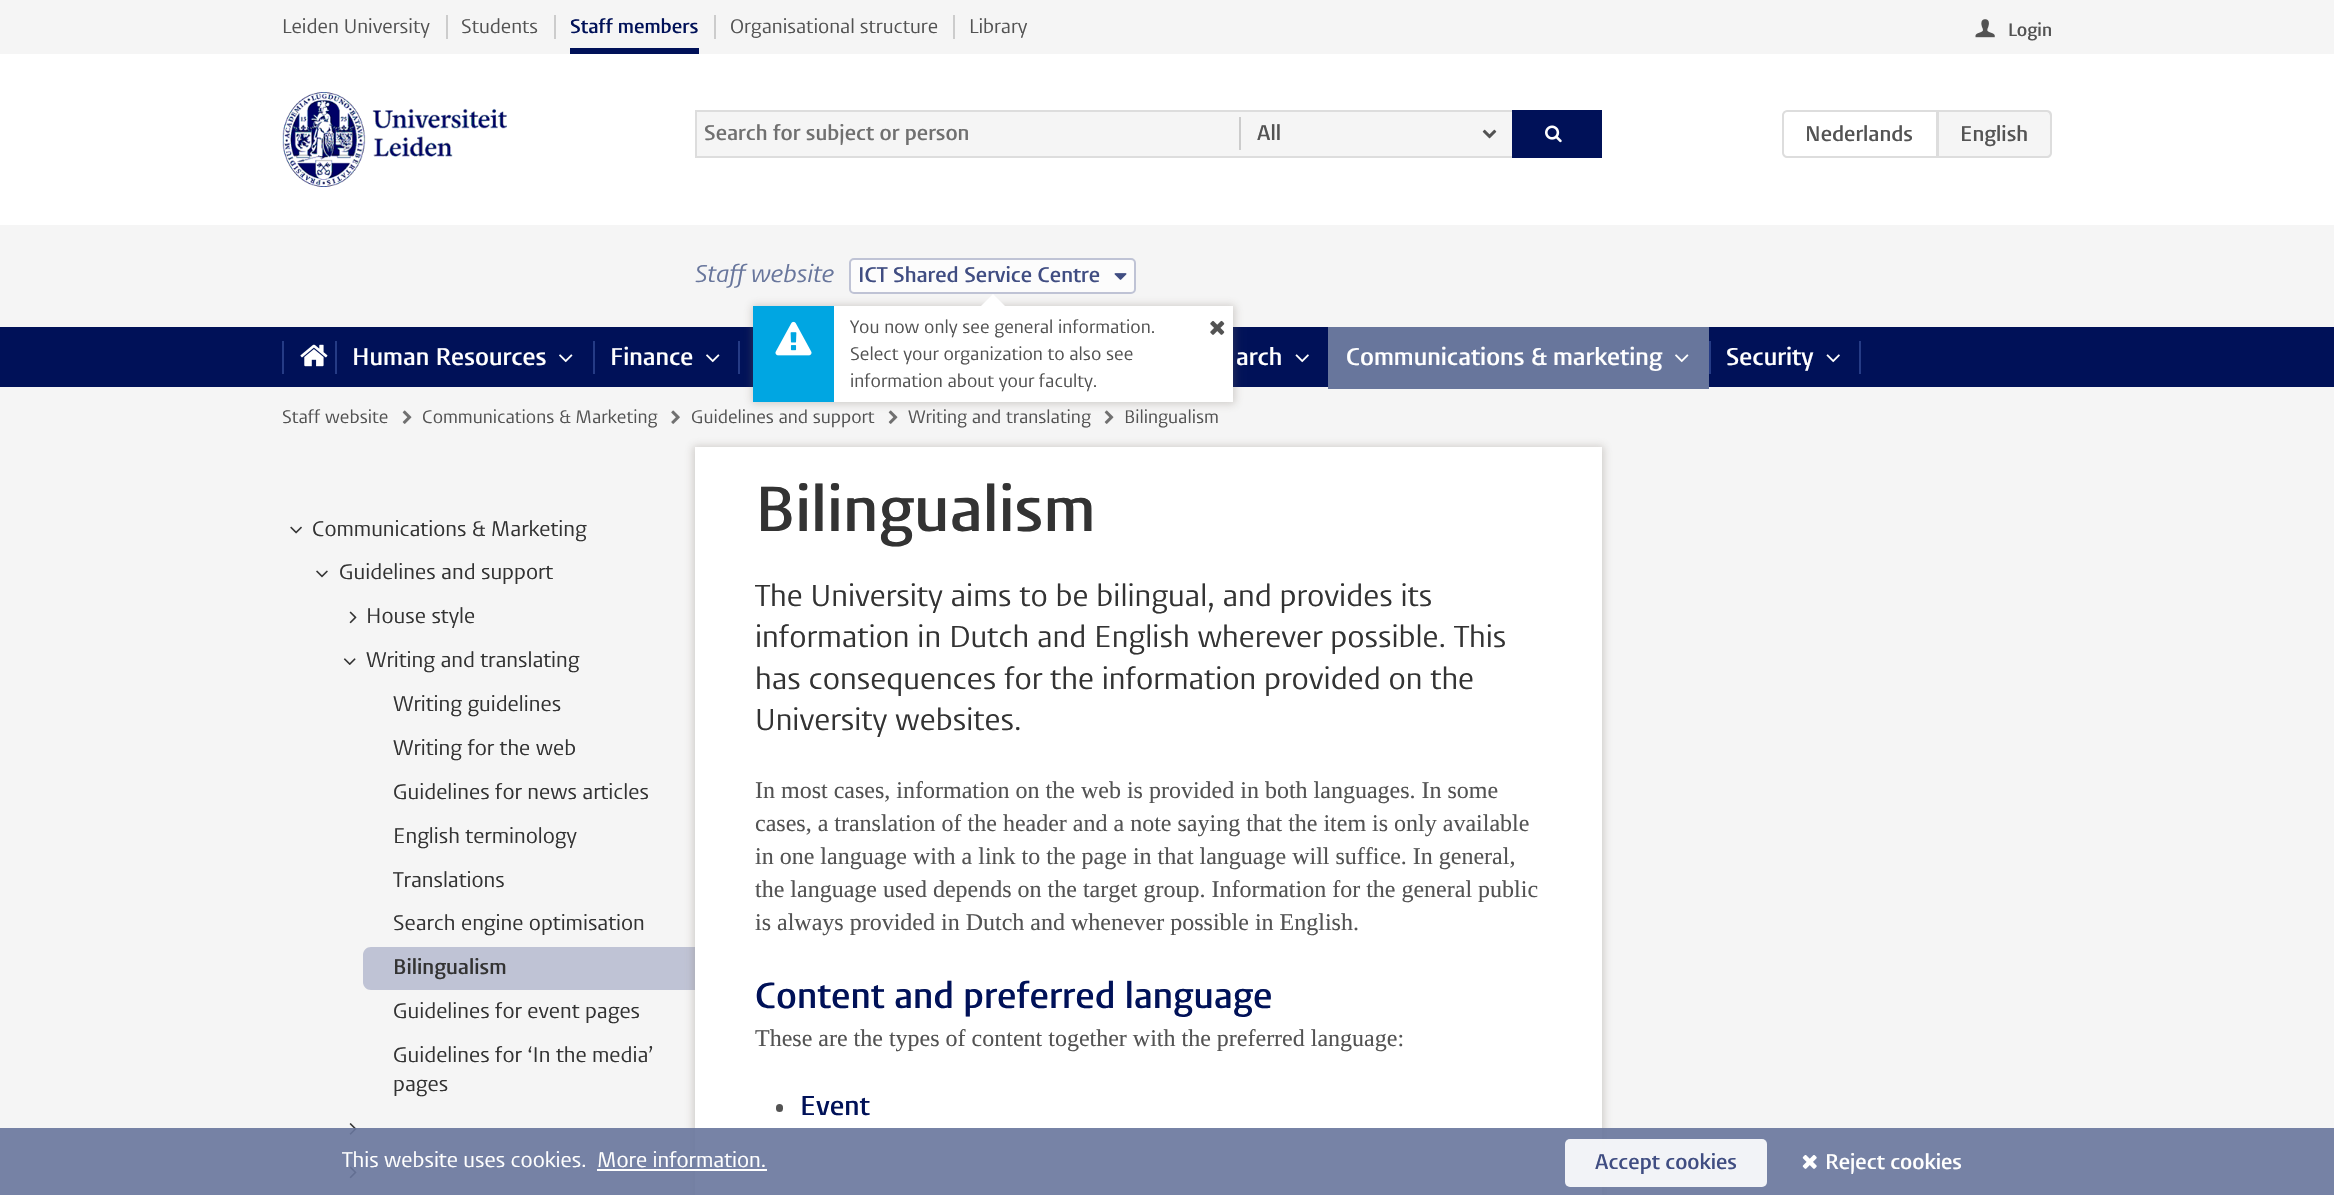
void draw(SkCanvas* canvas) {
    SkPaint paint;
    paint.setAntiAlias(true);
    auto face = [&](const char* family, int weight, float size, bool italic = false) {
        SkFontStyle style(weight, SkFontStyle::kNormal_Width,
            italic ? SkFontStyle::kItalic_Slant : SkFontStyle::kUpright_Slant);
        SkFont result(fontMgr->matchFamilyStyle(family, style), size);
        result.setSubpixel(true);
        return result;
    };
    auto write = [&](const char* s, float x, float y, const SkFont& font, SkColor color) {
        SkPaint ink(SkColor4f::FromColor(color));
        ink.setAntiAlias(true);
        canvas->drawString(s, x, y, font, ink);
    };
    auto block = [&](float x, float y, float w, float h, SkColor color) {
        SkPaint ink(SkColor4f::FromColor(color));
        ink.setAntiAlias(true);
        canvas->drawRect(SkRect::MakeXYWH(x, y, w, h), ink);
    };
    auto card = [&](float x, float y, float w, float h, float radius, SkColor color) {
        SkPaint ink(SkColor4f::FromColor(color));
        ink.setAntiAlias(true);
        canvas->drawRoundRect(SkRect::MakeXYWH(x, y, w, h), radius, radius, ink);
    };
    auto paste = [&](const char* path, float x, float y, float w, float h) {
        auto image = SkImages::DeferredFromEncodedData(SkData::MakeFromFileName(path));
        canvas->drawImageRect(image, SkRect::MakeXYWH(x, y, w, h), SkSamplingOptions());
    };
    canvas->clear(SkColorSetRGB(245, 245, 245));
    block(0, 54, 2334, 171, SK_ColorWHITE);
    block(446, 15, 2, 24, SkColorSetRGB(204, 204, 204));
    auto kFont1 = face("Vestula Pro", 400, 19.5f);
    write("Leiden University", 282, 33, kFont1, SkColorSetRGB(83, 83, 83));
    block(554, 15, 2, 24, SkColorSetRGB(204, 204, 204));
    write("Students", 461, 33, kFont1, SkColorSetRGB(83, 83, 83));
    block(714, 15, 2, 24, SkColorSetRGB(204, 204, 204));
    auto kFont2 = face("Vestula Pro", 600, 19.5f);
    write("Staff members", 570, 33, kFont2, SkColorSetRGB(0, 17, 88));
    block(570, 48, 129, 6, SkColorSetRGB(0, 17, 88));
    block(953, 15, 2, 24, SkColorSetRGB(204, 204, 204));
    write("Organisational structure", 730, 33, kFont1, SkColorSetRGB(83, 83, 83));
    write("Library", 969, 33, kFont1, SkColorSetRGB(83, 83, 83));
    paste("pic1.png", 1975, 19, 20, 19);
    auto kFont3 = face("Vestula Pro", 600, 18);
    write("Login", 2008, 36, kFont3, SkColorSetRGB(83, 83, 83));
    paste("pic2.png", 282, 92, 225, 95);
    block(697, 112, 815, 44, SkColorSetRGB(245, 245, 245));
    block(695, 110, 817, 2, SkColorSetRGB(221, 221, 221));
    block(695, 156, 817, 2, SkColorSetRGB(221, 221, 221));
    block(695, 110, 2, 48, SkColorSetRGB(221, 221, 221));
    auto kFont4 = face("Vestula Pro", 600, 21);
    write("Search for subject or person", 704, 140, kFont4, SkColorSetRGB(112, 112, 112));
    block(1239, 117, 2, 33, SkColorSetRGB(204, 204, 204));
    write("All", 1257, 140, kFont4, SkColorSetRGB(83, 83, 83));
    paste("pic3.png", 1482, 129, 15, 10);
    block(1512, 110, 90, 48, SkColorSetRGB(0, 17, 88));
    paste("pic4.png", 1545, 125, 17, 18);
    paint.setStyle(SkPaint::kStroke_Style);
    paint.setStrokeWidth(2);
    paint.setColor(SkColorSetRGB(221, 221, 221));
    canvas->drawPath(SkPathBuilder().moveTo(1787, 111).lineTo(1937, 111).lineTo(1937, 157).lineTo(1787, 157).cubicTo(1785, 157, 1783, 155, 1783, 153).lineTo(1783, 115).cubicTo(1783, 113, 1785, 111, 1787, 111).close().detach(), paint);
    write("Nederlands", 1805, 141, kFont4, SkColorSetRGB(83, 83, 83));
    paint.setStyle(SkPaint::kFill_Style);
    paint.setColor(SkColorSetRGB(245, 245, 245));
    canvas->drawPath(SkPathBuilder().moveTo(1937, 110).lineTo(2047, 110).cubicTo(2050, 110, 2052, 112, 2052, 115).lineTo(2052, 153).cubicTo(2052, 156, 2050, 158, 2047, 158).lineTo(1937, 158).close().detach(), paint);
    paint.setColor(SkColorSetRGB(225, 225, 225));
    canvas->drawPath(SkPathBuilder().moveTo(1938, 112).lineTo(2030, 112).cubicTo(2053, 112, 2050, 108, 2050, 129).lineTo(2050, 155).cubicTo(2051, 155, 2051, 154, 2051, 153).lineTo(2051, 114).cubicTo(2051, 112, 2050, 111, 2048, 111).lineTo(1938, 111).close().detach(), paint);
    paint.setStyle(SkPaint::kStroke_Style);
    paint.setColor(SkColorSetRGB(221, 221, 221));
    canvas->drawPath(SkPathBuilder().moveTo(1938, 111).lineTo(2047, 111).cubicTo(2049, 111, 2051, 113, 2051, 115).lineTo(2051, 153).cubicTo(2051, 155, 2049, 157, 2047, 157).lineTo(1938, 157).close().detach(), paint);
    write("English", 1960, 141, kFont4, SkColorSetRGB(83, 83, 83));
    auto kFont5 = face("Vestula Pro", 400, 24, true);
    write("Staff website", 695, 282, kFont5, SkColorSetRGB(104, 118, 156));
    paint.setStyle(SkPaint::kFill_Style);
    paint.setColor(SkColorSetRGB(252, 252, 252));
    canvas->drawRoundRect(SkRect::MakeXYWH(850, 259, 285, 34), 4, 4, paint);
    paint.setStyle(SkPaint::kStroke_Style);
    paint.setColor(SkColorSetRGB(191, 195, 213));
    canvas->drawRoundRect(SkRect::MakeXYWH(850, 259, 285, 34), 4, 4, paint);
    write("ICT Shared Service Centre", 858, 282, kFont4, SkColorSetRGB(64, 77, 130));
    paste("pic5.png", 1114, 273, 13, 7);
    block(0, 327, 2334, 60, SkColorSetRGB(0, 17, 88));
    block(738, 341, 2, 33, SkColorSetRGB(37, 59, 133));
    paste("pic12.png", 888, 410, 10, 14);
    paste("pic12.png", 1104, 410, 10, 14);
    paint.setStyle(SkPaint::kFill_Style);
    paint.setColor(SkColorSetARGB(77, 120, 110, 100));
    paint.setMaskFilter(SkMaskFilter::MakeBlur(kNormal_SkBlurStyle, 4));
    canvas->drawRect(SkRect::MakeXYWH(752, 305, 483, 99), paint);
    paint.setMaskFilter(nullptr);
    block(834, 306, 399, 96, SK_ColorWHITE);
    paint.setColor(SK_ColorWHITE);
    canvas->drawPath(SkPathBuilder().moveTo(1005, 306).lineTo(981, 306).lineTo(993, 294).close().detach(), paint);
    block(753, 306, 81, 96, SkColorSetRGB(0, 166, 226));
    paste("pic6.png", 775, 321, 37, 35);
    auto kFont6 = face("Vestula Pro", 400, 18);
    write("You now only see general information.", 850, 333, kFont6, SkColorSetRGB(83, 83, 83));
    paste("pic7.png", 1210, 320, 15, 15);
    write("Select your organization to also see", 850, 360, kFont6, SkColorSetRGB(83, 83, 83));
    write("information about your faculty.", 850, 387, kFont6, SkColorSetRGB(83, 83, 83));
    block(282, 341, 2, 33, SkColorSetRGB(37, 59, 133));
    paste("pic8.png", 300, 344, 28, 23);
    block(335, 341, 2, 33, SkColorSetRGB(37, 59, 133));
    auto kFont7 = face("Vestula Pro", 600, 24);
    write("Human Resources", 352, 365, kFont7, SK_ColorWHITE);
    paste("pic9.png", 559, 354, 14, 9);
    block(593, 341, 2, 33, SkColorSetRGB(37, 59, 133));
    write("Finance", 610, 365, kFont7, SK_ColorWHITE);
    paste("pic9.png", 706, 354, 14, 9);
    write("arch", 1236, 365, kFont7, SK_ColorWHITE);
    paste("pic10.png", 1295, 354, 14, 9);
    block(1328, 327, 381, 62, SkColorSetRGB(104, 118, 156));
    paste("pic11.png", 1675, 354, 14, 9);
    write("Communications & marketing", 1346, 365, kFont7, SK_ColorWHITE);
    block(1859, 341, 2, 33, SkColorSetRGB(37, 59, 133));
    block(1709, 341, 2, 33, SkColorSetRGB(37, 59, 133));
    write("Security", 1726, 365, kFont7, SK_ColorWHITE);
    paste("pic10.png", 1826, 354, 14, 9);
    write("Staff website", 282, 423, kFont6, SkColorSetRGB(83, 83, 83));
    paste("pic12.png", 402, 410, 10, 14);
    write("Communications & Marketing", 422, 423, kFont6, SkColorSetRGB(83, 83, 83));
    paste("pic13.png", 671, 410, 9, 14);
    write("Guidelines and support", 691, 423, kFont6, SkColorSetRGB(83, 83, 83));
    write("Writing and translating", 908, 423, kFont6, SkColorSetRGB(83, 83, 83));
    write("Bilingualism", 1124, 423, kFont6, SkColorSetRGB(83, 83, 83));
    paste("pic14.png", 290, 526, 12, 8);
    auto kFont8 = face("Vestula Pro", 400, 21);
    write("Communications & Marketing", 312, 536, kFont8, SkColorSetRGB(51, 51, 51));
    paste("pic15.png", 316, 570, 12, 8);
    write("Guidelines and support", 339, 579, kFont8, SkColorSetRGB(51, 51, 51));
    paste("pic16.png", 349, 611, 8, 13);
    write("House style", 366, 623, kFont8, SkColorSetRGB(51, 51, 51));
    paste("pic17.png", 343, 658, 13, 7);
    write("Writing and translating", 366, 667, kFont8, SkColorSetRGB(51, 51, 51));
    write("Writing guidelines", 393, 711, kFont8, SkColorSetRGB(51, 51, 51));
    write("Writing for the web", 393, 755, kFont8, SkColorSetRGB(51, 51, 51));
    write("Guidelines for news articles", 393, 799, kFont8, SkColorSetRGB(51, 51, 51));
    write("English terminology", 393, 843, kFont8, SkColorSetRGB(51, 51, 51));
    write("Translations", 393, 887, kFont8, SkColorSetRGB(51, 51, 51));
    write("Search engine optimisation", 393, 930, kFont8, SkColorSetRGB(51, 51, 51));
    paint.setColor(SkColorSetRGB(191, 195, 213));
    canvas->drawPath(SkPathBuilder().moveTo(371, 947).lineTo(695, 947).lineTo(695, 990).lineTo(371, 990).cubicTo(366.5f, 990, 363, 986.5f, 363, 982).lineTo(363, 955).cubicTo(363, 950.5f, 366.5f, 947, 371, 947).close().detach(), paint);
    write("Bilingualism", 393, 974, kFont4, SkColorSetRGB(51, 51, 51));
    write("Guidelines for event pages", 393, 1018, kFont8, SkColorSetRGB(51, 51, 51));
    write("Guidelines for ‘In the media’", 393, 1062, kFont8, SkColorSetRGB(51, 51, 51));
    write("pages", 393, 1091, kFont8, SkColorSetRGB(51, 51, 51));
    paste("pic18.png", 349, 1123, 8, 12);
    paste("pic16.png", 349, 1166, 8, 13);
    paint.setColor(SkColorSetARGB(77, 120, 110, 100));
    paint.setMaskFilter(SkMaskFilter::MakeBlur(kNormal_SkBlurStyle, 4));
    canvas->drawRect(SkRect::MakeXYWH(693, 446, 911, 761), paint);
    paint.setMaskFilter(nullptr);
    block(695, 447, 907, 748, SK_ColorWHITE);
    auto kFont9 = face("Vestula Pro", 600, 63);
    write("Bilingualism", 755, 531, kFont9, SkColorSetRGB(51, 51, 51));
    auto kFont10 = face("Vestula Pro", 400, 30);
    write("The University aims to be bilingual, and provides its", 755, 606, kFont10, SkColorSetRGB(51, 51, 51));
    write("information in Dutch and English wherever possible. This", 755, 647, kFont10, SkColorSetRGB(51, 51, 51));
    write("has consequences for the information provided on the", 755, 689, kFont10, SkColorSetRGB(51, 51, 51));
    write("University websites.", 755, 730, kFont10, SkColorSetRGB(51, 51, 51));
    auto kFont11 = face("Liberation Serif", 400, 24);
    write("In most cases, information on the web is provided in both languages. In some", 755, 798, kFont11, SkColorSetRGB(83, 83, 83));
    write("cases, a translation of the header and a note saying that the item is only available", 755, 831, kFont11, SkColorSetRGB(83, 83, 83));
    write("in one language with a link to the page in that language will suffice. In general,", 755, 864, kFont11, SkColorSetRGB(83, 83, 83));
    write("the language used depends on the target group. Information for the general public", 755, 897, kFont11, SkColorSetRGB(83, 83, 83));
    write("is always provided in Dutch and whenever possible in English.", 755, 930, kFont11, SkColorSetRGB(83, 83, 83));
    auto kFont12 = face("Vestula Pro", 600, 36);
    write("Content and preferred language", 755, 1008, kFont12, SkColorSetRGB(0, 17, 88));
    write("These are the types of content together with the preferred language:", 755, 1046, kFont11, SkColorSetRGB(83, 83, 83));
    card(776, 1104, 7, 8, 3.5f, SkColorSetRGB(83, 83, 83));
    auto kFont13 = face("Vestula Pro", 600, 27);
    write("Event", 800, 1115, kFont13, SkColorSetRGB(0, 17, 88));
    block(0, 1128, 2334, 67, SkColorSetARGB(230, 104, 118, 156));
    write("This website uses cookies.", 342, 1167, kFont8, SK_ColorWHITE);
    write("More information.", 597, 1167, kFont8, SK_ColorWHITE);
    block(597, 1169, 170, 2, SK_ColorWHITE);
    card(1565, 1139, 202, 48, 5, SkColorSetARGB(230, 255, 255, 255));
    write("Accept cookies", 1595, 1169, kFont4, SkColorSetRGB(64, 77, 130));
    paste("pic19.png", 1802, 1155, 15, 14);
    write("Reject cookies", 1825, 1169, kFont4, SK_ColorWHITE);
}
